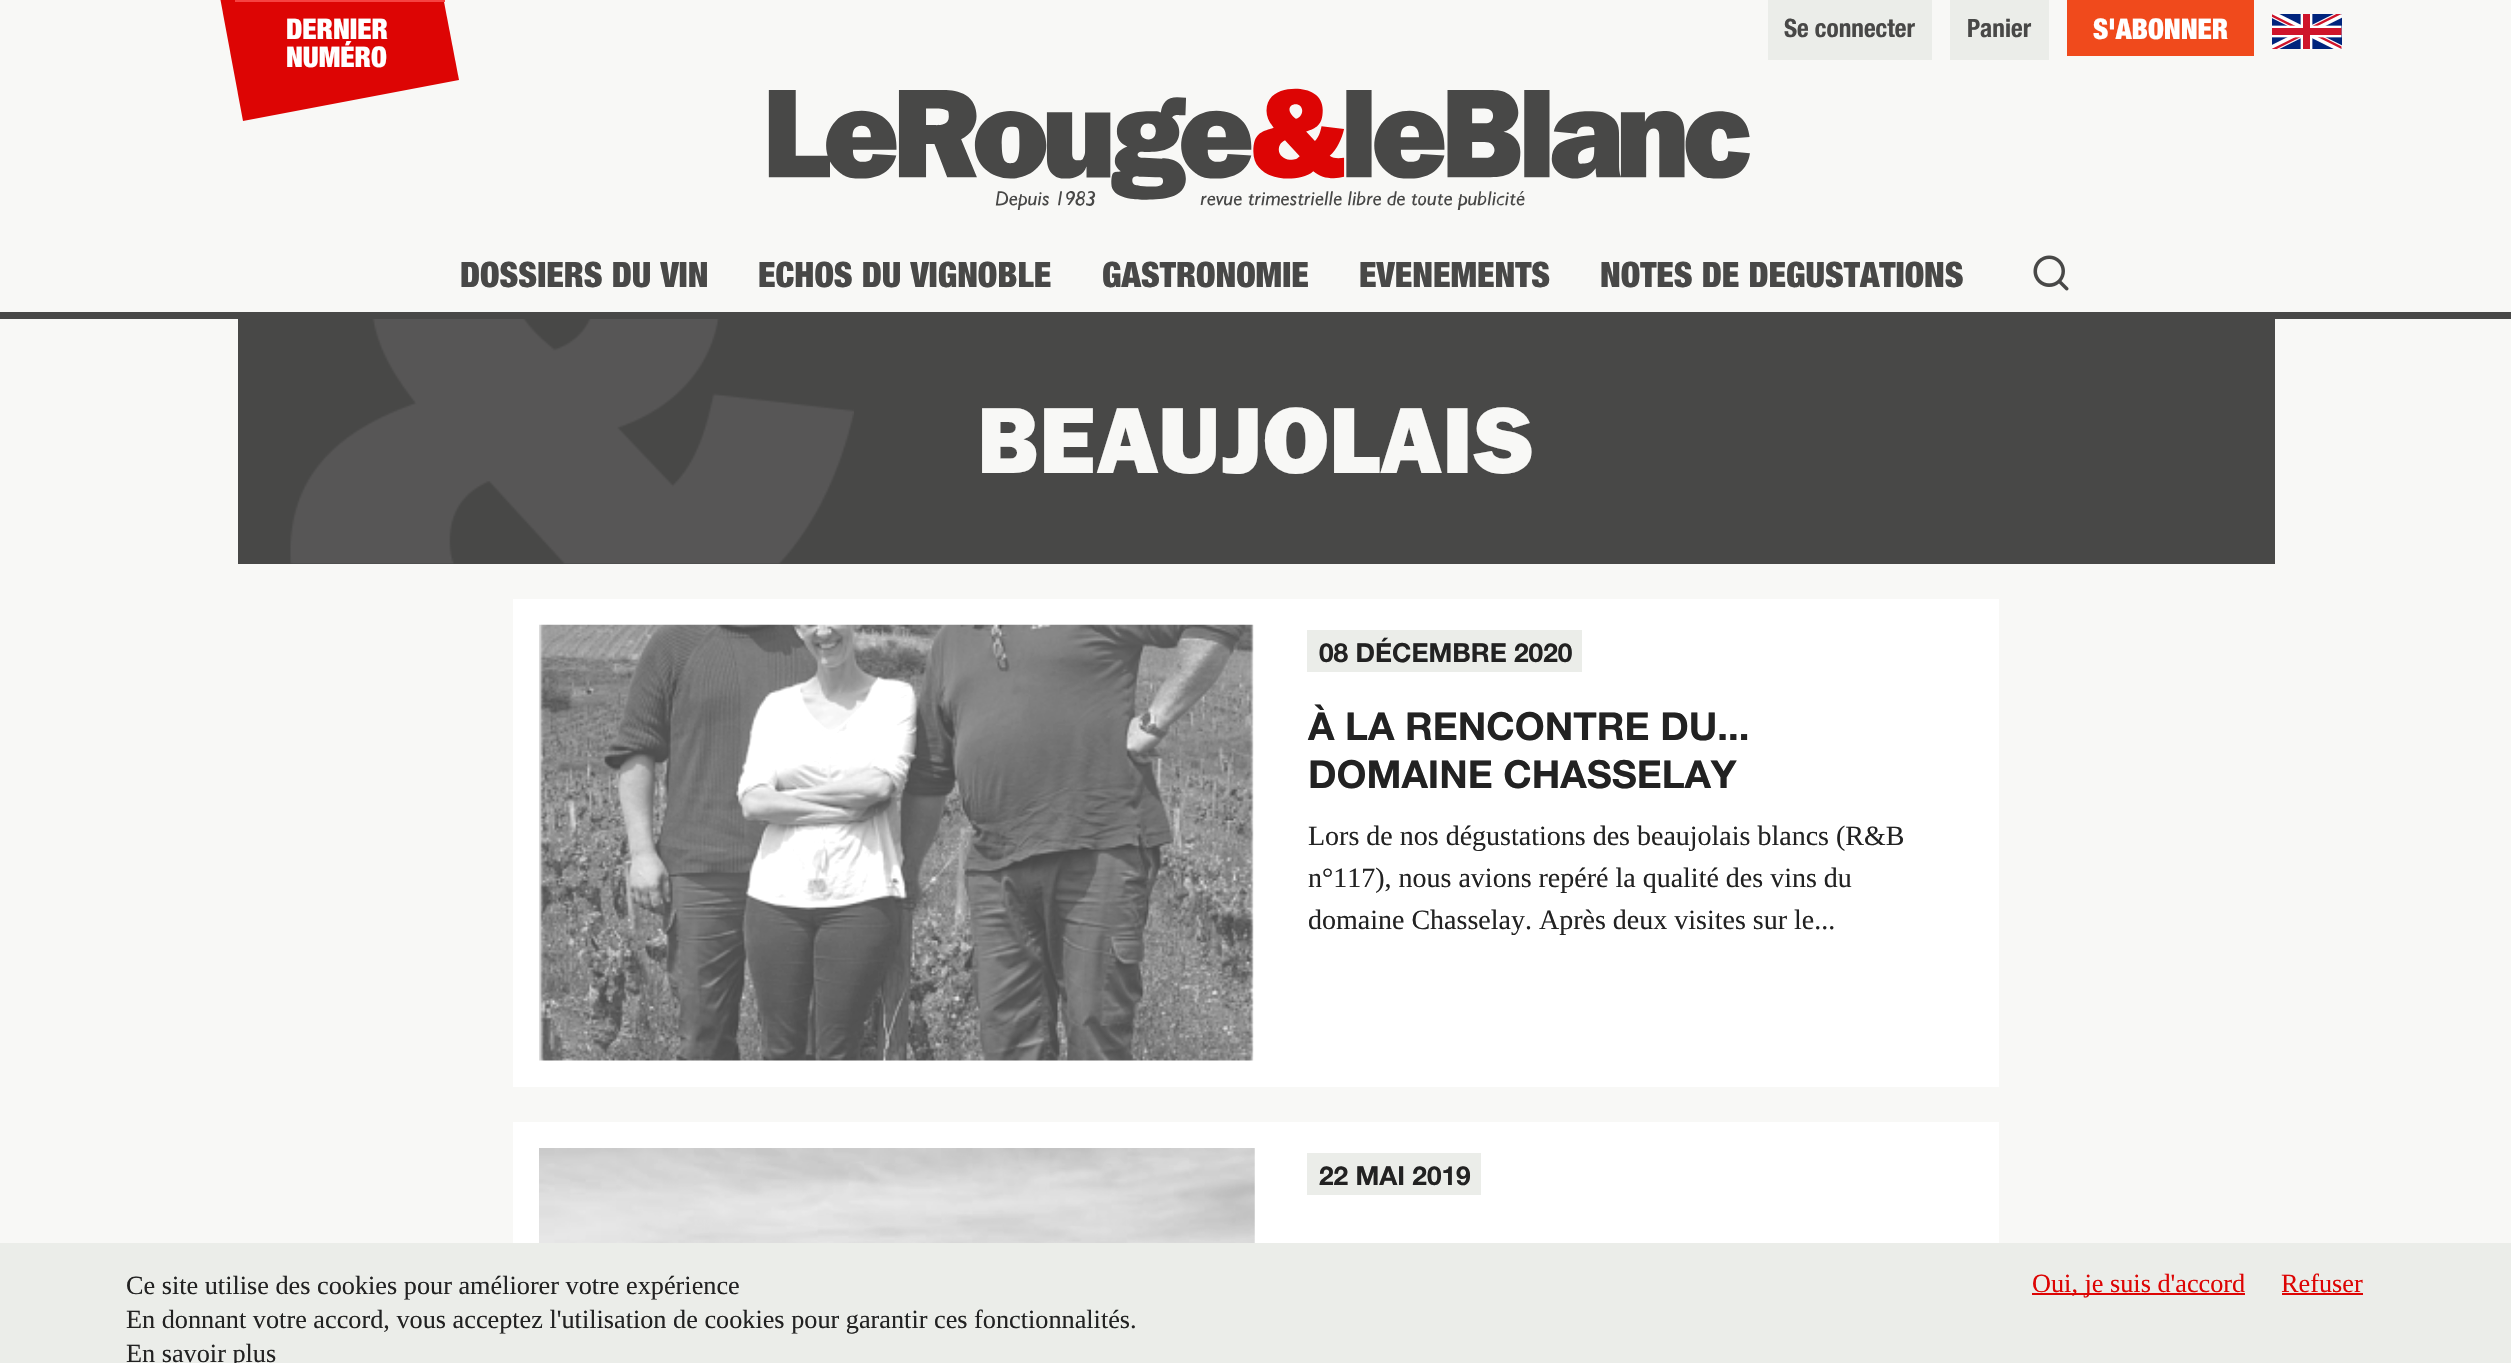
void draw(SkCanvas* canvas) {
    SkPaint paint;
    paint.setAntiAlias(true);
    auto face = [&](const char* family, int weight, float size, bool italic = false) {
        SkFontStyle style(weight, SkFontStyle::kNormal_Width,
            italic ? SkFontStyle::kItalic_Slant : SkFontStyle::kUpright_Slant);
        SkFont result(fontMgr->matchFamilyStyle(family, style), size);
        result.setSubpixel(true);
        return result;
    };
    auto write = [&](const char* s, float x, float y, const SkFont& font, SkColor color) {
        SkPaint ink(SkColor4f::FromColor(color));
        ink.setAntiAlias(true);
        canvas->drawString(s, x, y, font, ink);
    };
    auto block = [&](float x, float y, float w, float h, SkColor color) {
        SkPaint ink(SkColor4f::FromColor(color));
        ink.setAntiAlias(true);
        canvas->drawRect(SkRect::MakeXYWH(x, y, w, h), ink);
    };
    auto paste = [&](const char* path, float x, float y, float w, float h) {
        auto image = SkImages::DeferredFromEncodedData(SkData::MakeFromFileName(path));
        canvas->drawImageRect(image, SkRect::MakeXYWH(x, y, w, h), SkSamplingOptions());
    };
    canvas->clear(SkColorSetRGB(248, 248, 246));
    paint.setColor(SkColorSetRGB(221, 5, 4));
    canvas->drawPath(SkPathBuilder().moveTo(211, -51).lineTo(426, -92).lineTo(459, 80).lineTo(243, 121).close().detach(), paint);
    block(235, 0, 210, 2, SkColorSetRGB(246, 66, 65));
    auto kFont1 = face("Helvetica Neue", 900, 28.5f);
    write("DERNIER", 286, 39, kFont1, SK_ColorWHITE);
    write("NUMÉRO", 286, 67, kFont1, SK_ColorWHITE);
    block(1768, 0, 164, 60, SkColorSetRGB(235, 237, 233));
    auto kFont2 = face("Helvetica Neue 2", 700, 25.25f);
    write("Se connecter", 1784, 37, kFont2, SkColorSetRGB(72, 72, 71));
    block(1950, 0, 99, 60, SkColorSetRGB(235, 237, 233));
    write("Panier", 1967, 37, kFont2, SkColorSetRGB(72, 72, 71));
    block(2067, 0, 187, 56, SkColorSetRGB(240, 74, 28));
    write("S'ABONNER", 2093, 39, kFont1, SK_ColorWHITE);
    paste("pic1.png", 2272, 14, 70, 35);
    paste("pic2.png", 768, 88, 982, 122);
    auto kFont3 = face("Helvetica Neue", 900, 35);
    write("DOSSIERS DU VIN", 460, 287, kFont3, SkColorSetRGB(72, 72, 71));
    write("ECHOS DU VIGNOBLE", 758, 287, kFont3, SkColorSetRGB(72, 72, 71));
    write("GASTRONOMIE", 1102, 287, kFont3, SkColorSetRGB(72, 72, 71));
    write("EVENEMENTS", 1359, 287, kFont3, SkColorSetRGB(72, 72, 71));
    write("NOTES DE DEGUSTATIONS", 1600, 287, kFont3, SkColorSetRGB(72, 72, 71));
    paste("pic3.png", 2033, 255, 36, 36);
    block(0, 312, 2511, 7, SkColorSetRGB(72, 72, 71));
    block(238, 319, 2037, 245, SkColorSetRGB(72, 72, 71));
    paste("pic4.png", 290, 319, 564, 245);
    auto kFont4 = face("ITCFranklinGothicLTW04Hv", 700, 94.5f);
    write("BEAUJOLAIS", 977, 473, kFont4, SkColorSetRGB(248, 248, 246));
    block(513, 599, 1486, 488, SK_ColorWHITE);
    paste("pic5.png", 539, 624, 715, 437);
    block(1307, 630, 275, 42, SkColorSetRGB(235, 237, 233));
    auto kFont5 = face("Helvetica Neue", 700, 26.25f);
    write("08 DÉCEMBRE 2020", 1319, 662, kFont5, SkColorSetRGB(34, 34, 34));
    auto kFont6 = face("Helvetica Neue", 700, 38.5f);
    write("À LA RENCONTRE DU...", 1308, 740, kFont6, SkColorSetRGB(34, 34, 34));
    write("DOMAINE CHASSELAY", 1308, 788, kFont6, SkColorSetRGB(34, 34, 34));
    auto kFont7 = face("Liberation Serif", 400, 28);
    write("Lors de nos dégustations des beaujolais blancs (R&B", 1308, 845, kFont7, SkColorSetRGB(34, 34, 34));
    write("n°117), nous avions repéré la qualité des vins du", 1308, 887, kFont7, SkColorSetRGB(34, 34, 34));
    write("domaine Chasselay. Après deux visites sur le...", 1308, 929, kFont7, SkColorSetRGB(34, 34, 34));
    block(513, 1122, 1486, 121, SK_ColorWHITE);
    paste("pic6.png", 539, 1148, 716, 95);
    block(1307, 1153, 174, 42, SkColorSetRGB(235, 237, 233));
    write("22 MAI 2019", 1319, 1185, kFont5, SkColorSetRGB(34, 34, 34));
    block(0, 1243, 2511, 120, SkColorSetRGB(235, 237, 233));
    auto kFont8 = face("Liberation Serif", 400, 26.25f);
    write("Ce site utilise des cookies pour améliorer votre expérience", 126, 1294, kFont8, SkColorSetRGB(34, 34, 34));
    write("En donnant votre accord, vous acceptez l'utilisation de cookies pour garantir ces fonctionnalités.", 126, 1328, kFont8, SkColorSetRGB(34, 34, 34));
    write("En savoir plus", 126, 1362, kFont8, SkColorSetRGB(34, 34, 34));
    block(2032, 1293, 213, 2, SkColorSetRGB(221, 5, 4));
    write("Oui, je suis d'accord", 2032, 1292, kFont8, SkColorSetRGB(221, 5, 4));
    write("Refuser", 2281, 1292, kFont8, SkColorSetRGB(221, 5, 4));
    block(2282, 1293, 81, 2, SkColorSetRGB(221, 5, 4));
}
